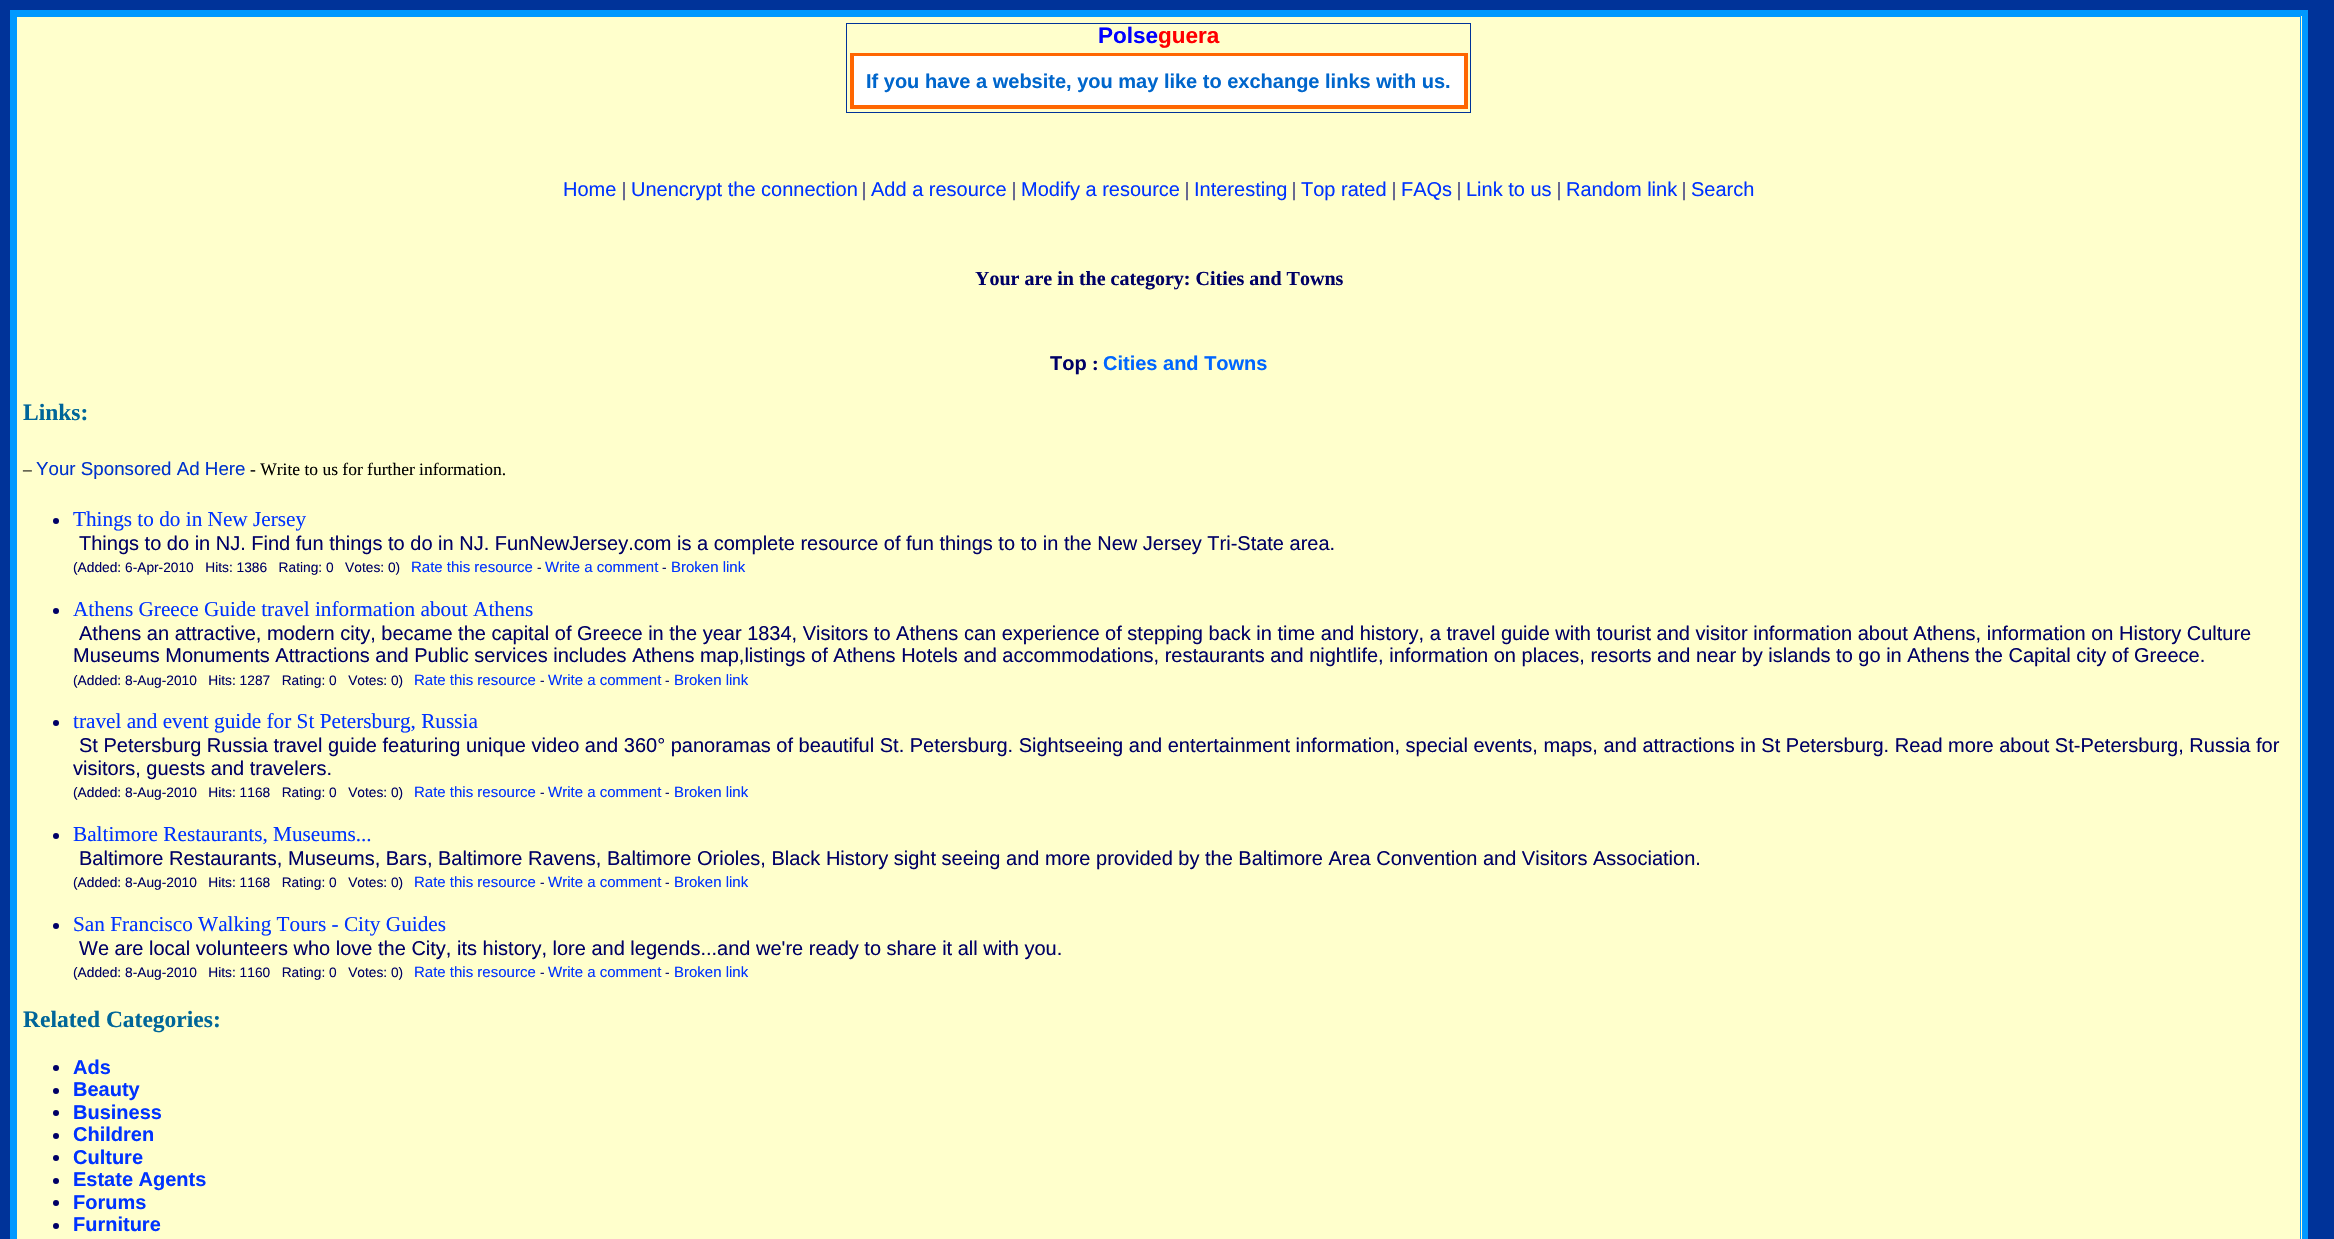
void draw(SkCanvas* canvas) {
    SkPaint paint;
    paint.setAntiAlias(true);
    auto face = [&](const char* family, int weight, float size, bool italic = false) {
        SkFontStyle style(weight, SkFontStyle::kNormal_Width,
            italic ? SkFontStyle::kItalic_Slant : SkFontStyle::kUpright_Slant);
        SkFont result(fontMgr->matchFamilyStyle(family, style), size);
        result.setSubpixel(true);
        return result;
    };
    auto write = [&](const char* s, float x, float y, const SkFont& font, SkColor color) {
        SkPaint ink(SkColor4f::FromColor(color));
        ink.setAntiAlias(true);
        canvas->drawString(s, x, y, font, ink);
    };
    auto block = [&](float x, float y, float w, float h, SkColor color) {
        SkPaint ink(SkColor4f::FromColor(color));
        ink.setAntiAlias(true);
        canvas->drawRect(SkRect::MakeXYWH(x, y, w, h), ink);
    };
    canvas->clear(SkColorSetRGB(0, 51, 153));
    block(10, 10, 2298, 1229, SkColorSetRGB(0, 153, 255));
    block(17, 16, 2285, 1223, SkColorSetRGB(255, 255, 204));
    paint.setStyle(SkPaint::kStroke_Style);
    paint.setStrokeWidth(1);
    paint.setColor(SkColorSetRGB(0, 153, 255));
    canvas->drawRect(SkRect::MakeXYWH(16.5f, 16.5f, 2284, 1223), paint);
    paint.setColor(SkColorSetRGB(0, 51, 153));
    canvas->drawRect(SkRect::MakeXYWH(846.5f, 23.5f, 624, 89), paint);
    auto kFont1 = face("Liberation Sans", 700, 22.5f);
    write("Polse", 1098, 43, kFont1, SkColorSetRGB(0, 0, 255));
    write("guera", 1158, 43, kFont1, SkColorSetRGB(255, 0, 0));
    block(854, 56, 610, 49, SK_ColorWHITE);
    paint.setStrokeWidth(3);
    paint.setColor(SkColorSetRGB(255, 102, 0));
    canvas->drawRect(SkRect::MakeXYWH(851.5f, 54.5f, 615, 53), paint);
    paint.setStrokeWidth(1);
    canvas->drawRect(SkRect::MakeXYWH(853.5f, 55.5f, 611, 50), paint);
    auto kFont2 = face("Liberation Sans", 700, 20);
    write("If you have a website, you may like to exchange links with us.", 866, 88, kFont2, SkColorSetRGB(0, 102, 204));
    auto kFont3 = face("Liberation Sans", 400, 20);
    write("Home", 563, 196, kFont3, SkColorSetRGB(0, 51, 255));
    auto kFont4 = face("Liberation Serif", 400, 20);
    write("|", 622, 196, kFont4, SkColorSetRGB(0, 0, 102));
    write("Unencrypt the connection", 631, 196, kFont3, SkColorSetRGB(0, 51, 255));
    write("|", 862, 196, kFont4, SkColorSetRGB(0, 0, 102));
    write("Add a resource", 871, 196, kFont3, SkColorSetRGB(0, 51, 255));
    write("|", 1012, 196, kFont4, SkColorSetRGB(0, 0, 102));
    write("Modify a resource", 1021, 196, kFont3, SkColorSetRGB(0, 51, 255));
    write("|", 1185, 196, kFont4, SkColorSetRGB(0, 0, 102));
    write("Interesting", 1194, 196, kFont3, SkColorSetRGB(0, 51, 255));
    write("|", 1292, 196, kFont4, SkColorSetRGB(0, 0, 102));
    write("Top rated", 1301, 196, kFont3, SkColorSetRGB(0, 51, 255));
    write("|", 1392, 196, kFont4, SkColorSetRGB(0, 0, 102));
    write("FAQs", 1401, 196, kFont3, SkColorSetRGB(0, 51, 255));
    write("|", 1457, 196, kFont4, SkColorSetRGB(0, 0, 102));
    write("Link to us", 1466, 196, kFont3, SkColorSetRGB(0, 51, 255));
    write("|", 1557, 196, kFont4, SkColorSetRGB(0, 0, 102));
    write("Random link", 1566, 196, kFont3, SkColorSetRGB(0, 51, 255));
    write("|", 1682, 196, kFont4, SkColorSetRGB(0, 0, 102));
    write("Search", 1691, 196, kFont3, SkColorSetRGB(0, 51, 255));
    auto kFont5 = face("Liberation Serif", 700, 20);
    write("Your are in the category: Cities and Towns", 975, 285, kFont5, SkColorSetRGB(0, 0, 102));
    write("Top", 1050, 370, kFont2, SkColorSetRGB(0, 0, 102));
    write(":", 1092, 370, kFont5, SkColorSetRGB(0, 0, 102));
    write("Cities and Towns", 1103, 370, kFont2, SkColorSetRGB(0, 102, 255));
    auto kFont6 = face("Liberation Serif", 700, 23.5f);
    write("Links:", 23, 420, kFont6, SkColorSetRGB(0, 102, 153));
    auto kFont7 = face("Liberation Serif", 400, 17.5f);
    write("–", 23, 475, kFont7, SK_ColorBLACK);
    auto kFont8 = face("Liberation Sans", 400, 18.75f);
    write("Your Sponsored Ad Here", 36, 475, kFont8, SkColorSetRGB(0, 51, 204));
    write("- Write to us for further information.", 250, 475, kFont7, SK_ColorBLACK);
    paint.setStyle(SkPaint::kFill_Style);
    paint.setColor(SkColorSetRGB(0, 0, 102));
    canvas->drawCircle(56, 521, 3, paint);
    auto kFont9 = face("Liberation Serif", 400, 21.25f);
    write("Things to do in New Jersey", 73, 526, kFont9, SkColorSetRGB(0, 51, 255));
    write("Things to do in NJ. Find fun things to do in NJ. FunNewJersey.com is a complete resource of fun things to to in the New Jersey Tri-State area.", 79, 550, kFont3, SkColorSetRGB(0, 0, 102));
    auto kFont10 = face("Liberation Sans", 400, 13.75f);
    write("(Added: 6-Apr-2010   Hits: 1386   Rating: 0   Votes: 0)", 73, 572, kFont10, SkColorSetRGB(0, 0, 102));
    auto kFont11 = face("Liberation Sans", 400, 15);
    write("Rate this resource", 411, 572, kFont11, SkColorSetRGB(0, 51, 255));
    write("-", 537, 572, kFont10, SkColorSetRGB(0, 0, 102));
    write("Write a comment", 545, 572, kFont11, SkColorSetRGB(0, 51, 255));
    write("-", 662, 572, kFont10, SkColorSetRGB(0, 0, 102));
    write("Broken link", 671, 572, kFont11, SkColorSetRGB(0, 51, 255));
    canvas->drawCircle(56, 611, 3, paint);
    write("Athens Greece Guide travel information about Athens", 73, 616, kFont9, SkColorSetRGB(0, 51, 255));
    write("Athens an attractive, modern city, became the capital of Greece in the year 1834, Visitors to Athens can experience of stepping back in time and history, a travel guide with tourist and visitor information about Athens, information on History Culture", 79, 640, kFont3, SkColorSetRGB(0, 0, 102));
    write("Museums Monuments Attractions and Public services includes Athens map,listings of Athens Hotels and accommodations, restaurants and nightlife, information on places, resorts and near by islands to go in Athens the Capital city of Greece.", 73, 662, kFont3, SkColorSetRGB(0, 0, 102));
    write("(Added: 8-Aug-2010   Hits: 1287   Rating: 0   Votes: 0)", 73, 685, kFont10, SkColorSetRGB(0, 0, 102));
    write("Rate this resource", 414, 685, kFont11, SkColorSetRGB(0, 51, 255));
    write("-", 540, 685, kFont10, SkColorSetRGB(0, 0, 102));
    write("Write a comment", 548, 685, kFont11, SkColorSetRGB(0, 51, 255));
    write("-", 665, 685, kFont10, SkColorSetRGB(0, 0, 102));
    write("Broken link", 674, 685, kFont11, SkColorSetRGB(0, 51, 255));
    canvas->drawCircle(56, 723, 3, paint);
    write("travel and event guide for St Petersburg, Russia", 73, 728, kFont9, SkColorSetRGB(0, 51, 255));
    write("St Petersburg Russia travel guide featuring unique video and 360° panoramas of beautiful St. Petersburg. Sightseeing and entertainment information, special events, maps, and attractions in St Petersburg. Read more about St-Petersburg, Russia for", 79, 752, kFont3, SkColorSetRGB(0, 0, 102));
    write("visitors, guests and travelers.", 73, 775, kFont3, SkColorSetRGB(0, 0, 102));
    write("(Added: 8-Aug-2010   Hits: 1168   Rating: 0   Votes: 0)", 73, 797, kFont10, SkColorSetRGB(0, 0, 102));
    write("Rate this resource", 414, 797, kFont11, SkColorSetRGB(0, 51, 255));
    write("-", 540, 797, kFont10, SkColorSetRGB(0, 0, 102));
    write("Write a comment", 548, 797, kFont11, SkColorSetRGB(0, 51, 255));
    write("-", 665, 797, kFont10, SkColorSetRGB(0, 0, 102));
    write("Broken link", 674, 797, kFont11, SkColorSetRGB(0, 51, 255));
    canvas->drawCircle(56, 836, 3, paint);
    write("Baltimore Restaurants, Museums...", 73, 841, kFont9, SkColorSetRGB(0, 51, 255));
    write("Baltimore Restaurants, Museums, Bars, Baltimore Ravens, Baltimore Orioles, Black History sight seeing and more provided by the Baltimore Area Convention and Visitors Association.", 79, 865, kFont3, SkColorSetRGB(0, 0, 102));
    write("(Added: 8-Aug-2010   Hits: 1168   Rating: 0   Votes: 0)", 73, 887, kFont10, SkColorSetRGB(0, 0, 102));
    write("Rate this resource", 414, 887, kFont11, SkColorSetRGB(0, 51, 255));
    write("-", 540, 887, kFont10, SkColorSetRGB(0, 0, 102));
    write("Write a comment", 548, 887, kFont11, SkColorSetRGB(0, 51, 255));
    write("-", 665, 887, kFont10, SkColorSetRGB(0, 0, 102));
    write("Broken link", 674, 887, kFont11, SkColorSetRGB(0, 51, 255));
    canvas->drawCircle(56, 926, 3, paint);
    write("San Francisco Walking Tours - City Guides", 73, 931, kFont9, SkColorSetRGB(0, 51, 255));
    write("We are local volunteers who love the City, its history, lore and legends...and we're ready to share it all with you.", 79, 955, kFont3, SkColorSetRGB(0, 0, 102));
    write("(Added: 8-Aug-2010   Hits: 1160   Rating: 0   Votes: 0)", 73, 977, kFont10, SkColorSetRGB(0, 0, 102));
    write("Rate this resource", 414, 977, kFont11, SkColorSetRGB(0, 51, 255));
    write("-", 540, 977, kFont10, SkColorSetRGB(0, 0, 102));
    write("Write a comment", 548, 977, kFont11, SkColorSetRGB(0, 51, 255));
    write("-", 665, 977, kFont10, SkColorSetRGB(0, 0, 102));
    write("Broken link", 674, 977, kFont11, SkColorSetRGB(0, 51, 255));
    write("Related Categories:", 23, 1027, kFont6, SkColorSetRGB(0, 102, 153));
    canvas->drawCircle(56, 1068, 3, paint);
    write("Ads", 73, 1074, kFont2, SkColorSetRGB(0, 51, 255));
    canvas->drawCircle(56, 1091, 3, paint);
    write("Beauty", 73, 1096, kFont2, SkColorSetRGB(0, 51, 255));
    canvas->drawCircle(56, 1113, 3, paint);
    write("Business", 73, 1119, kFont2, SkColorSetRGB(0, 51, 255));
    canvas->drawCircle(56, 1136, 3, paint);
    write("Children", 73, 1141, kFont2, SkColorSetRGB(0, 51, 255));
    canvas->drawCircle(56, 1158, 3, paint);
    write("Culture", 73, 1164, kFont2, SkColorSetRGB(0, 51, 255));
    canvas->drawCircle(56, 1181, 3, paint);
    write("Estate Agents", 73, 1186, kFont2, SkColorSetRGB(0, 51, 255));
    canvas->drawCircle(56, 1203, 3, paint);
    write("Forums", 73, 1209, kFont2, SkColorSetRGB(0, 51, 255));
    canvas->drawCircle(56, 1226, 3, paint);
    write("Furniture", 73, 1231, kFont2, SkColorSetRGB(0, 51, 255));
}
